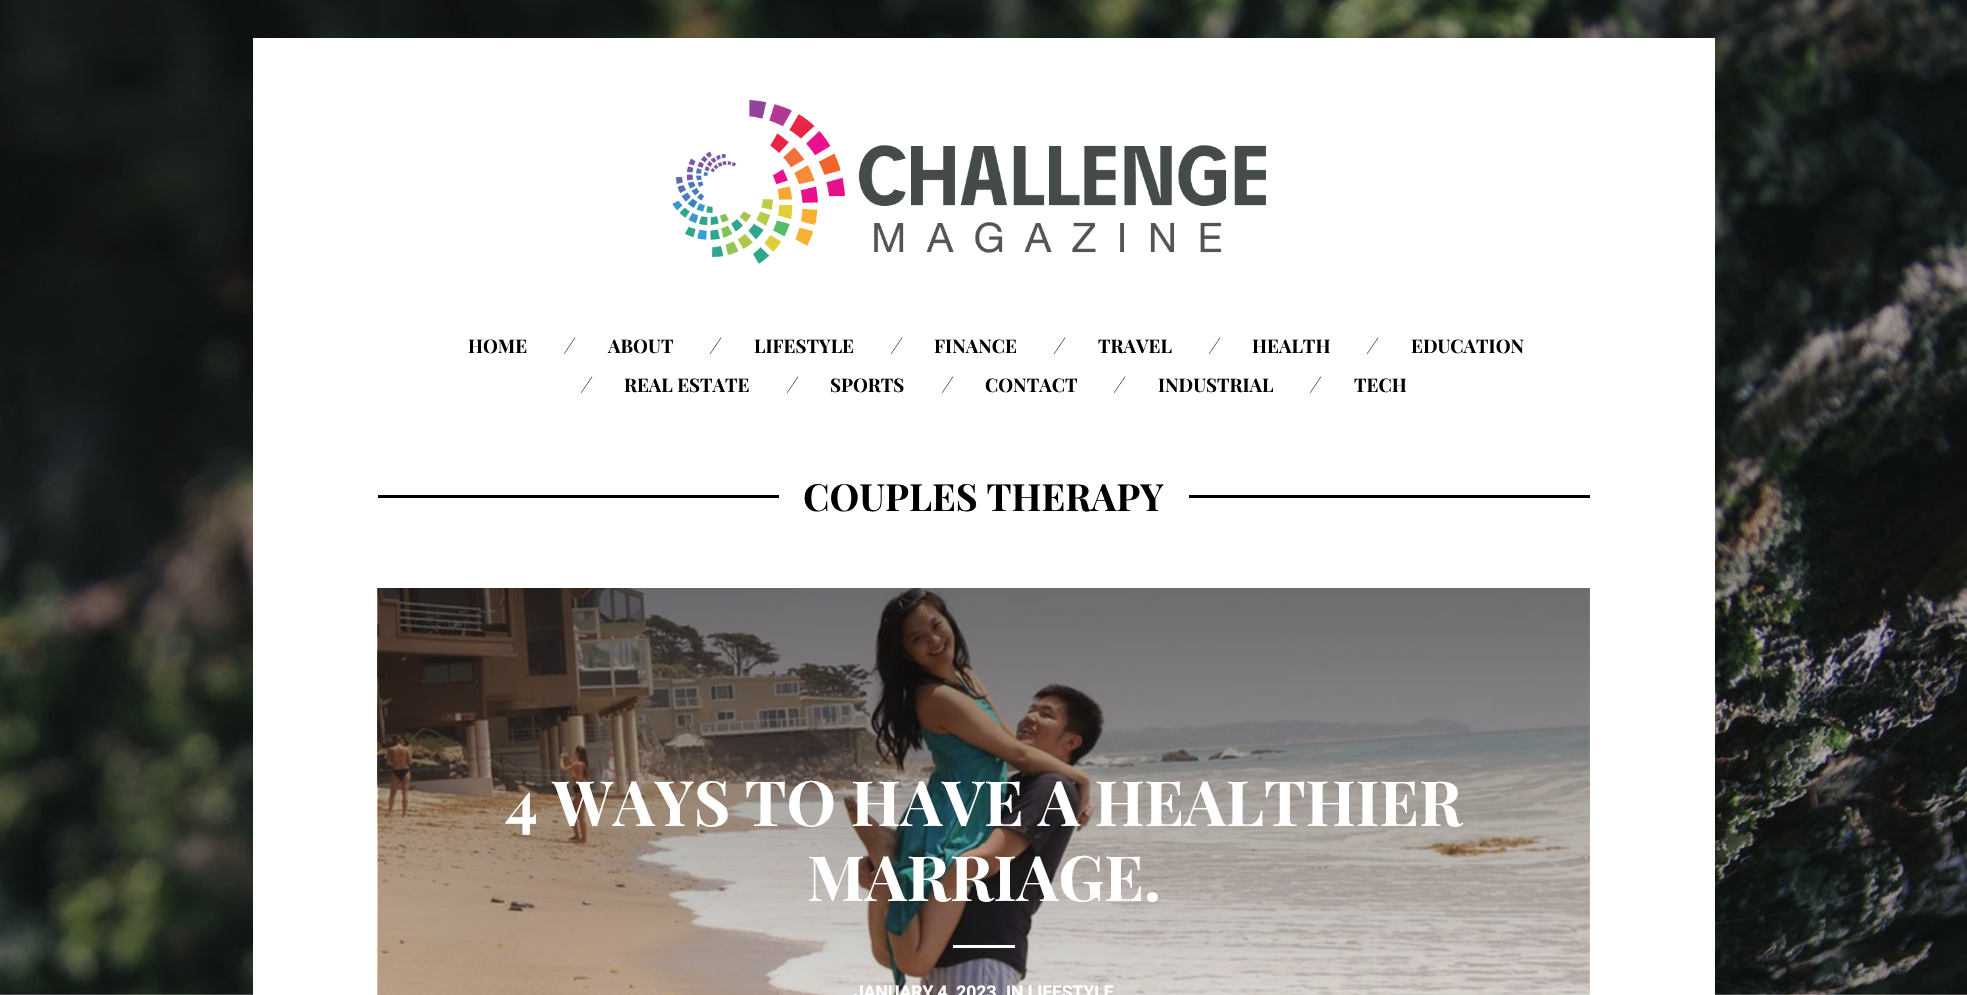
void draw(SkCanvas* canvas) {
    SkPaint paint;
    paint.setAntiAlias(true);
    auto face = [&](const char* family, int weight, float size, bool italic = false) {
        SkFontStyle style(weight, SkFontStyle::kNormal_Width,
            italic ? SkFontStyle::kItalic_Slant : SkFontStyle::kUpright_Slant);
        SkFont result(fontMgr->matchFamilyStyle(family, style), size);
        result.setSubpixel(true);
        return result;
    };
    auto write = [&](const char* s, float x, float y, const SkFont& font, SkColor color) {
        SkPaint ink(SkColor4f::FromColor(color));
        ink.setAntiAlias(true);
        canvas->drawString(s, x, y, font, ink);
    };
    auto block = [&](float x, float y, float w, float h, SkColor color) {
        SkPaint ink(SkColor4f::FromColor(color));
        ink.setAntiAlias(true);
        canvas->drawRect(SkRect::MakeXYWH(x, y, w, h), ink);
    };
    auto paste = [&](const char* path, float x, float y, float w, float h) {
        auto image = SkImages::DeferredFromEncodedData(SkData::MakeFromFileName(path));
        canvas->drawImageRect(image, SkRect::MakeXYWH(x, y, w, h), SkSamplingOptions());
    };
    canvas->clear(SK_ColorWHITE);
    paste("pic1.png", 0, 0, 1967, 995);
    block(253, 38, 1462, 957, SK_ColorWHITE);
    paste("pic2.png", 672, 100, 594, 164);
    auto kFont1 = face("Playfair Display", 700, 18.75f);
    write("HOME", 468, 353, kFont1, SK_ColorBLACK);
    write("⁄", 569, 353, kFont1, SK_ColorBLACK);
    write("ABOUT", 608, 353, kFont1, SK_ColorBLACK);
    write("⁄", 715, 353, kFont1, SK_ColorBLACK);
    write("LIFESTYLE", 754, 353, kFont1, SK_ColorBLACK);
    write("⁄", 896, 353, kFont1, SK_ColorBLACK);
    write("FINANCE", 934, 353, kFont1, SK_ColorBLACK);
    write("⁄", 1059, 353, kFont1, SK_ColorBLACK);
    write("TRAVEL", 1098, 353, kFont1, SK_ColorBLACK);
    write("⁄", 1214, 353, kFont1, SK_ColorBLACK);
    write("HEALTH", 1252, 353, kFont1, SK_ColorBLACK);
    write("⁄", 1372, 353, kFont1, SK_ColorBLACK);
    write("EDUCATION", 1411, 353, kFont1, SK_ColorBLACK);
    write("⁄", 586, 392, kFont1, SK_ColorBLACK);
    write("REAL ESTATE", 624, 392, kFont1, SK_ColorBLACK);
    write("⁄", 792, 392, kFont1, SK_ColorBLACK);
    write("SPORTS", 830, 392, kFont1, SK_ColorBLACK);
    write("⁄", 947, 392, kFont1, SK_ColorBLACK);
    write("CONTACT", 985, 392, kFont1, SK_ColorBLACK);
    write("⁄", 1119, 392, kFont1, SK_ColorBLACK);
    write("INDUSTRIAL", 1158, 392, kFont1, SK_ColorBLACK);
    write("⁄", 1315, 392, kFont1, SK_ColorBLACK);
    write("TECH", 1354, 392, kFont1, SK_ColorBLACK);
    block(378, 495, 1212, 3, SK_ColorBLACK);
    block(779, 495, 410, 3, SK_ColorWHITE);
    auto kFont2 = face("Playfair Display", 700, 37.5f);
    write("COUPLES THERAPY", 803, 511, kFont2, SK_ColorBLACK);
    paste("pic3.png", 377, 588, 1213, 407);
    {
        const SkColor colors[] = {SkColorSetARGB(128, 0, 0, 0), SkColorSetARGB(0, 0, 0, 0)};
        const float stops[] = {0, 1};
        const SkPoint ends[] = {{984, 587}, {984, 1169}};
        paint.setShader(SkGradientShader::MakeLinear(ends, colors, stops, 2, SkTileMode::kClamp));
        paint.setAlpha(255);
    }
    canvas->drawRect(SkRect::MakeXYWH(378, 588, 1212, 407), paint);
    auto kFont3 = face("Playfair Display", 700, 62.5f);
    write("4 WAYS TO HAVE A HEALTHIER", 505, 826, kFont3, SK_ColorWHITE);
    write("MARRIAGE.", 807, 901, kFont3, SK_ColorWHITE);
    block(953, 945, 62, 3, SK_ColorWHITE);
    auto kFont4 = face("Roboto", 700, 17.5f);
    write("JANUARY 4, 2023", 854, 998, kFont4, SK_ColorWHITE);
    write("IN LIFESTYLE", 1006, 998, kFont4, SK_ColorWHITE);
}
